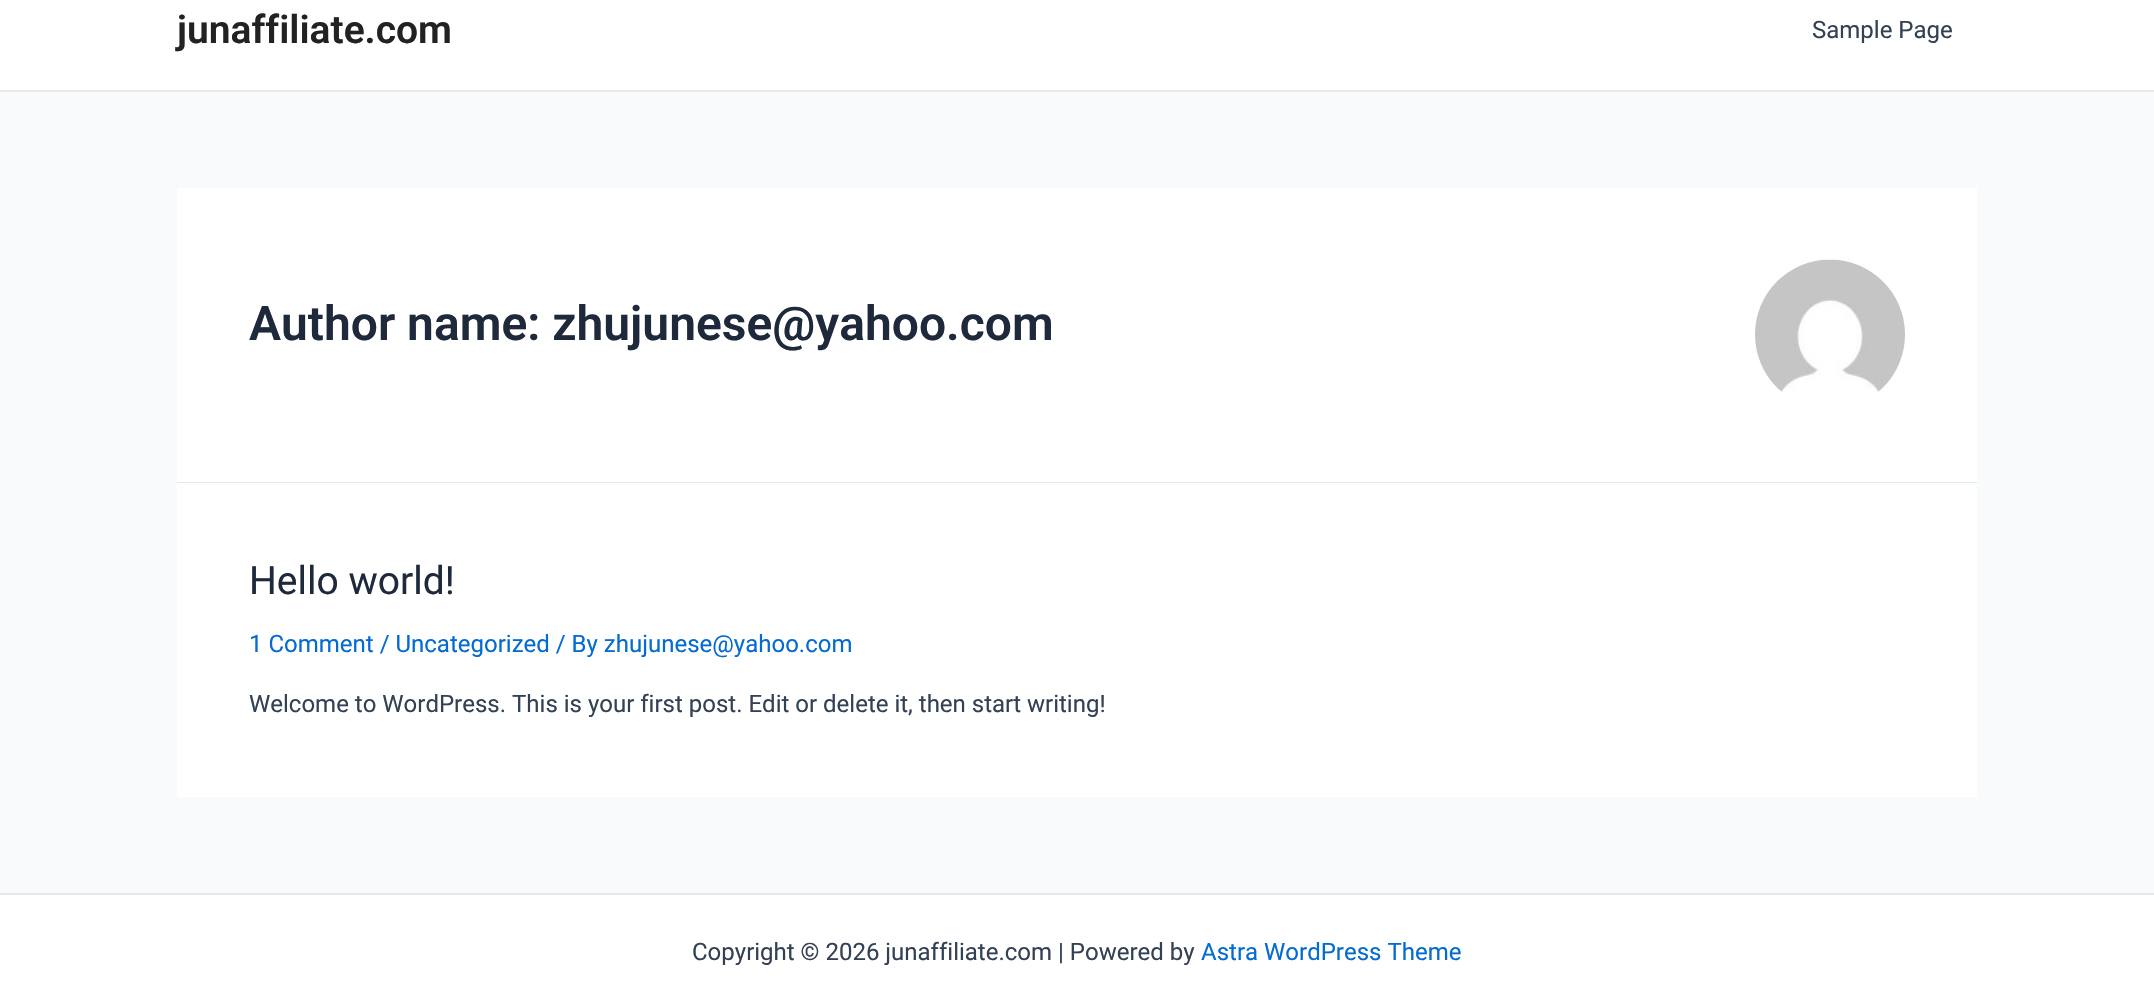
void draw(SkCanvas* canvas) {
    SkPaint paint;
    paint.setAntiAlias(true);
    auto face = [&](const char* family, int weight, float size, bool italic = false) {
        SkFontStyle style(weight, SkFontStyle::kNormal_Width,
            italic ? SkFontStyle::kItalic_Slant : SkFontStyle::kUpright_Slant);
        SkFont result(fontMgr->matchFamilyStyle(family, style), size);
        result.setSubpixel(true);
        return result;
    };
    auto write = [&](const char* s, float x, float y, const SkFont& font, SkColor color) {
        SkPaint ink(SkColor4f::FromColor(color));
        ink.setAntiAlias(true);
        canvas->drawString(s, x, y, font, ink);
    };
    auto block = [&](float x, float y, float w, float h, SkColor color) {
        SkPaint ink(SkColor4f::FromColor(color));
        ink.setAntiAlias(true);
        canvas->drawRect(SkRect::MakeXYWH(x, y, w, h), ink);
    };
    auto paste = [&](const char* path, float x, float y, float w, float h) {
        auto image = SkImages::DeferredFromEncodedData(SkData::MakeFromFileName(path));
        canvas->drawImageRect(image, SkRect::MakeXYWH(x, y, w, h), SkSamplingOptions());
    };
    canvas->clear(SkColorSetRGB(249, 250, 251));
    block(0, 0, 2154, 90, SK_ColorWHITE);
    block(0, 90, 2154, 2, SkColorSetRGB(234, 234, 234));
    auto kFont1 = face("Roboto", 600, 39);
    write("junaffiliate.com", 177, 43, kFont1, SkColorSetRGB(34, 34, 34));
    auto kFont2 = face("Roboto", 400, 24);
    write("Sample Page", 1812, 38, kFont2, SkColorSetRGB(51, 65, 85));
    block(177, 188, 1800, 294, SK_ColorWHITE);
    block(177, 482, 1800, 1, SkColorSetRGB(226, 232, 240));
    auto kFont3 = face("Roboto", 600, 48);
    write("Author name: zhujunese@yahoo.com", 249, 340, kFont3, SkColorSetRGB(30, 41, 59));
    paste("pic1.png", 1755, 259, 150, 133);
    block(177, 483, 1800, 314, SK_ColorWHITE);
    auto kFont4 = face("Roboto", 400, 39);
    write("Hello world!", 249, 594, kFont4, SkColorSetRGB(30, 41, 59));
    write("1 Comment / Uncategorized / By zhujunese@yahoo.com", 249, 652, kFont2, SkColorSetRGB(4, 107, 210));
    write("Welcome to WordPress. This is your first post. Edit or delete it, then start writing!", 249, 712, kFont2, SkColorSetRGB(51, 65, 85));
    block(0, 895, 2154, 110, SK_ColorWHITE);
    block(0, 893, 2154, 2, SkColorSetRGB(226, 232, 240));
    write("Copyright © 2026 junaffiliate.com | Powered by", 692, 960, kFont2, SkColorSetRGB(51, 65, 85));
    write("Astra WordPress Theme", 1201, 960, kFont2, SkColorSetRGB(4, 107, 210));
}
